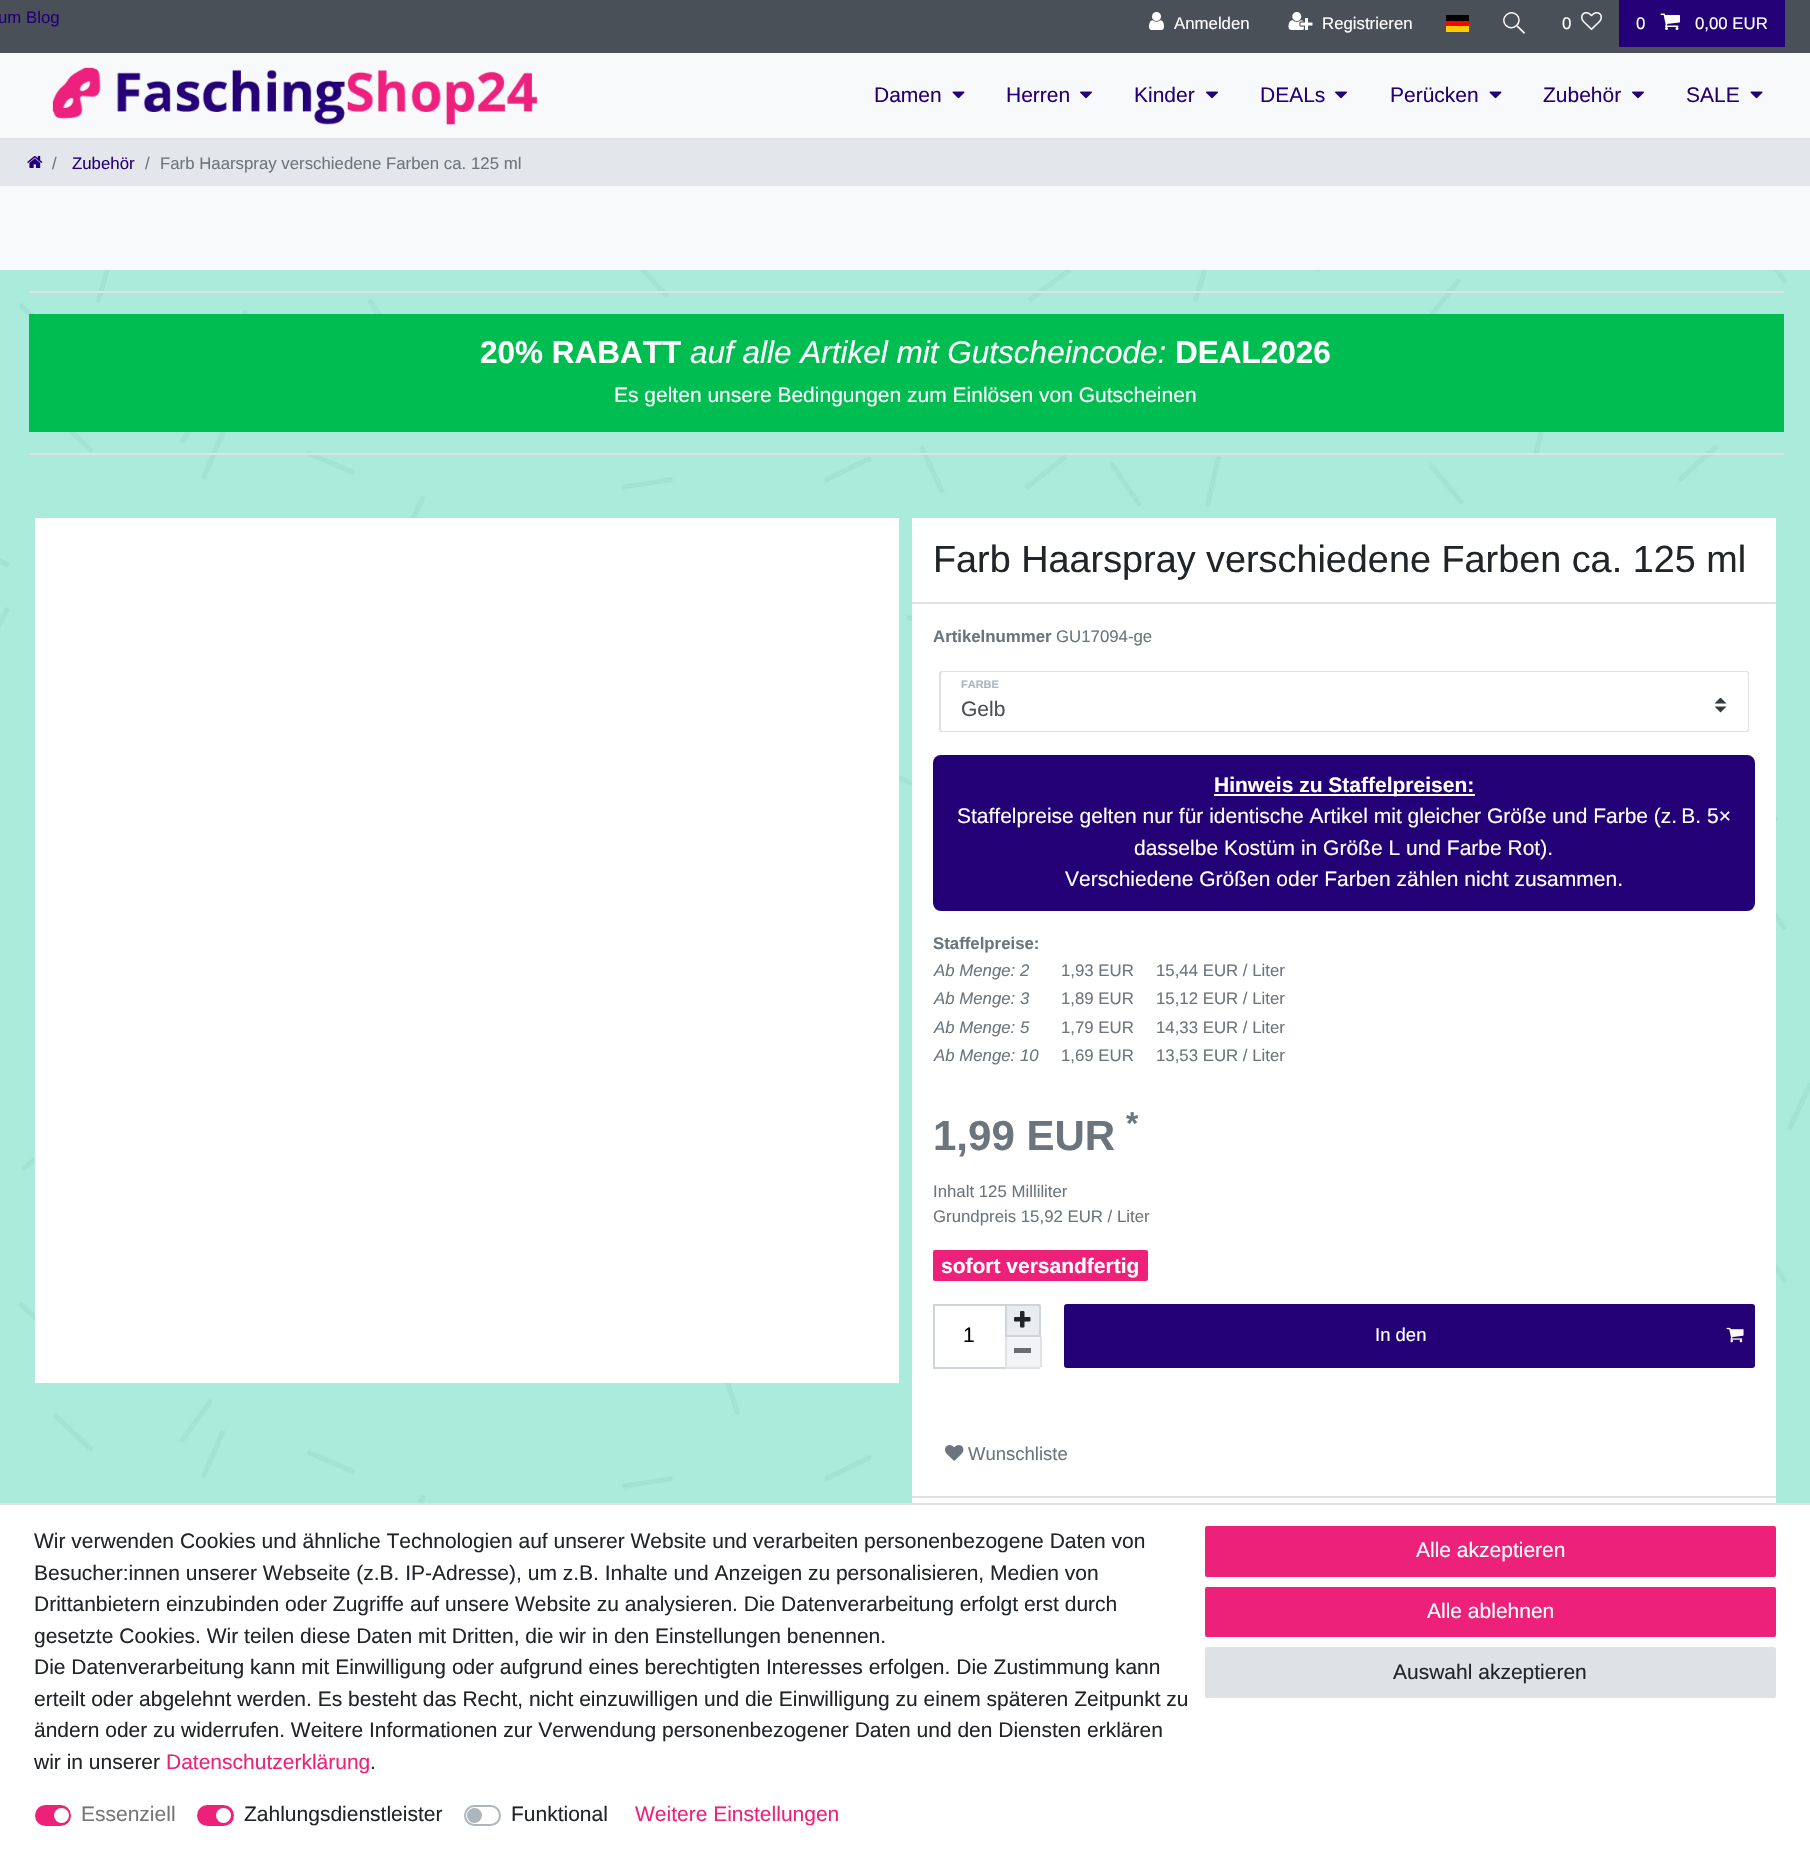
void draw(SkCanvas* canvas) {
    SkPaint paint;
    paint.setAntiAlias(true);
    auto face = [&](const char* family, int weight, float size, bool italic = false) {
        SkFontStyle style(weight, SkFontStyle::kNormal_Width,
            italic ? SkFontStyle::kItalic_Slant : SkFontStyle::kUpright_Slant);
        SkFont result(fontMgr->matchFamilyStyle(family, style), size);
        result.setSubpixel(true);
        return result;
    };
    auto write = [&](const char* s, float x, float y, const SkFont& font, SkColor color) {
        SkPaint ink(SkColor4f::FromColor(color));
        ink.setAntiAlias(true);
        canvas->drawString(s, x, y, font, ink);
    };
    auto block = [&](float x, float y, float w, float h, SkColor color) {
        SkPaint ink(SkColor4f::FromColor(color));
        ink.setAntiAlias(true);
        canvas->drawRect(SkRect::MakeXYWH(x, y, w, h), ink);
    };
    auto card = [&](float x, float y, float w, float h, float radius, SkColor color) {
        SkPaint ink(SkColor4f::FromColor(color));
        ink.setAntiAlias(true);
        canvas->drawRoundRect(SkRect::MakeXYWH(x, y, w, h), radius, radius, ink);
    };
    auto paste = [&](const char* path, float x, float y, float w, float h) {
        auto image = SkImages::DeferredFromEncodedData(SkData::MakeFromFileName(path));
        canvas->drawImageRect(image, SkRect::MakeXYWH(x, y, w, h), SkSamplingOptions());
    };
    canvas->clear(SkColorSetRGB(248, 249, 250));
    block(0, 0, 1810, 53, SkColorSetRGB(73, 80, 87));
    auto kFont1 = face("Liberation Sans", 400, 16.8f);
    write("um Blog", -2, 23, kFont1, SkColorSetRGB(36, 0, 119));
    paste("pic1.png", 1149, 12, 15, 18);
    write("Anmelden", 1174, 29, kFont1, SK_ColorWHITE);
    paste("pic2.png", 1288, 12, 25, 18);
    write("Registrieren", 1322, 29, kFont1, SK_ColorWHITE);
    block(1446, 26, 23, 6, SkColorSetRGB(255, 204, 0));
    block(1446, 15, 23, 6, SK_ColorBLACK);
    block(1446, 21, 23, 5, SkColorSetRGB(255, 0, 0));
    paint.setColor(SK_ColorWHITE);
    canvas->drawPath(SkPathBuilder().moveTo(1523.5f, 33.5f).lineTo(1508.5f, 18.5f).lineTo(1508.5f, 18).cubicTo(1509, 17.5f, 1509.5f, 17.5f, 1509.5f, 17.5f).lineTo(1525, 32.5f).cubicTo(1525, 33.5f, 1524, 34, 1523.5f, 33.5f).close().detach(), paint);
    paint.setColor(SkColorSetRGB(73, 80, 87));
    canvas->drawPath(SkPathBuilder().moveTo(1505.5f, 26).cubicTo(1498, 18.5f, 1509.5f, 7, 1517.5f, 14.5f).cubicTo(1525, 22, 1513.5f, 34, 1505.5f, 26).close().detach(), paint);
    paint.setStyle(SkPaint::kStroke_Style);
    paint.setStrokeWidth(1.5f);
    paint.setColor(SK_ColorWHITE);
    canvas->drawPath(SkPathBuilder().moveTo(1506, 25.5f).cubicTo(1499, 18.5f, 1510, 8, 1517, 15).cubicTo(1523.5f, 22, 1513, 32.5f, 1506, 25.5f).close().detach(), paint);
    write("0", 1562, 29, kFont1, SK_ColorWHITE);
    paste("pic3.png", 1581, 12, 21, 18);
    block(1619, 0, 166, 47, SkColorSetRGB(36, 0, 119));
    write("0", 1636, 29, kFont1, SK_ColorWHITE);
    paste("pic4.png", 1660, 13, 20, 17);
    write("0,00 EUR", 1695, 29, kFont1, SK_ColorWHITE);
    block(0, 138, 1810, 2, SkColorSetRGB(222, 226, 230));
    paste("pic5.png", 52, 67, 485, 58);
    auto kFont2 = face("Liberation Sans", 400, 21);
    write("Damen", 874, 102, kFont2, SkColorSetRGB(36, 0, 119));
    paste("pic6.png", 952, 91, 13, 8);
    write("Herren", 1006, 102, kFont2, SkColorSetRGB(36, 0, 119));
    paste("pic7.png", 1080, 91, 12, 8);
    write("Kinder", 1134, 102, kFont2, SkColorSetRGB(36, 0, 119));
    paste("pic7.png", 1206, 91, 12, 8);
    write("DEALs", 1260, 102, kFont2, SkColorSetRGB(36, 0, 119));
    paste("pic7.png", 1335, 91, 12, 8);
    write("Perücken", 1390, 102, kFont2, SkColorSetRGB(36, 0, 119));
    paste("pic6.png", 1489, 91, 13, 8);
    write("Zubehör", 1543, 102, kFont2, SkColorSetRGB(36, 0, 119));
    paste("pic7.png", 1632, 91, 12, 8);
    write("SALE", 1686, 102, kFont2, SkColorSetRGB(36, 0, 119));
    paste("pic6.png", 1750, 91, 13, 8);
    block(0, 140, 1810, 46, SkColorSetRGB(227, 231, 235));
    paste("pic8.png", 27, 156, 16, 12);
    write("/", 52, 169, kFont1, SkColorSetRGB(108, 117, 125));
    write("Zubehör", 72, 169, kFont1, SkColorSetRGB(36, 0, 119));
    write("/", 145, 169, kFont1, SkColorSetRGB(108, 117, 125));
    write("Farb Haarspray verschiedene Farben ca. 125 ml", 160, 169, kFont1, SkColorSetRGB(108, 117, 125));
    block(0, 270, 1810, 1233, SkColorSetRGB(170, 235, 220));
    paste("pic9.png", 0, 270, 1810, 1233);
    block(29, 291, 1755, 2, SkColorSetRGB(222, 226, 230));
    block(29, 314, 1755, 118, SkColorSetRGB(0, 189, 82));
    auto kFont3 = face("Liberation Sans", 700, 31.5f);
    write("20% RABATT", 480, 363, kFont3, SK_ColorWHITE);
    auto kFont4 = face("Liberation Sans", 400, 31.5f, true);
    write("auf alle Artikel mit Gutscheincode:", 690, 363, kFont4, SK_ColorWHITE);
    write("DEAL2026", 1175, 363, kFont3, SK_ColorWHITE);
    write("Es gelten unsere Bedingungen zum Einlösen von Gutscheinen", 614, 402, kFont2, SK_ColorWHITE);
    block(29, 453, 1755, 2, SkColorSetRGB(222, 226, 230));
    block(35, 518, 864, 865, SK_ColorWHITE);
    block(912, 518, 864, 985, SK_ColorWHITE);
    auto kFont5 = face("Liberation Sans", 400, 37.8f);
    write("Farb Haarspray verschiedene Farben ca. 125 ml", 933, 572, kFont5, SkColorSetRGB(33, 37, 41));
    block(912, 602, 864, 2, SkColorSetRGB(222, 226, 230));
    auto kFont6 = face("Liberation Sans", 700, 16.8f);
    write("Artikelnummer", 933, 642, kFont6, SkColorSetRGB(108, 117, 125));
    write("GU17094-ge", 1056, 642, kFont1, SkColorSetRGB(108, 117, 125));
    paint.setStrokeWidth(2);
    paint.setColor(SkColorSetRGB(222, 226, 230));
    canvas->drawRoundRect(SkRect::MakeXYWH(940, 672, 808, 59), 1, 1, paint);
    canvas->save();
    canvas->clipPath(SkPathBuilder().moveTo(942, 672).lineTo(1747, 672).cubicTo(1747.5f, 672, 1748, 672.5f, 1748, 673).lineTo(1748, 730).cubicTo(1748, 730.5f, 1747.5f, 731, 1747, 731).lineTo(942, 731).cubicTo(941.5f, 731, 941, 730.5f, 941, 730).lineTo(941, 673).cubicTo(941, 672.5f, 941.5f, 672, 942, 672).close().detach(), true);
    card(941, 672, 807, 59, 2, SK_ColorWHITE);
    canvas->restore();
    auto kFont7 = face("Liberation Sans", 700, 11);
    write("FARBE", 961, 688, kFont7, SkColorSetRGB(173, 181, 189));
    paste("pic10.png", 1715, 698, 12, 15);
    write("Gelb", 961, 716, kFont2, SkColorSetRGB(73, 80, 87));
    card(933, 755, 822, 156, 8, SkColorSetRGB(36, 0, 119));
    block(1214, 794, 261, 2, SK_ColorWHITE);
    auto kFont8 = face("Liberation Sans", 700, 21);
    write("Hinweis zu Staffelpreisen:", 1214, 792, kFont8, SK_ColorWHITE);
    write("Staffelpreise gelten nur für identische Artikel mit gleicher Größe und Farbe (z. B. 5×", 957, 823, kFont2, SK_ColorWHITE);
    write("dasselbe Kostüm in Größe L und Farbe Rot).", 1134, 855, kFont2, SK_ColorWHITE);
    write("Verschiedene Größen oder Farben zählen nicht zusammen.", 1065, 886, kFont2, SK_ColorWHITE);
    write("Staffelpreise:", 933, 949, kFont6, SkColorSetRGB(108, 117, 125));
    auto kFont9 = face("Liberation Sans", 400, 16.8f, true);
    write("Ab Menge: 2", 934, 976, kFont9, SkColorSetRGB(108, 117, 125));
    write("1,93 EUR", 1061, 976, kFont1, SkColorSetRGB(108, 117, 125));
    write("15,44 EUR / Liter", 1156, 976, kFont1, SkColorSetRGB(108, 117, 125));
    write("Ab Menge: 3", 934, 1004, kFont9, SkColorSetRGB(108, 117, 125));
    write("1,89 EUR", 1061, 1004, kFont1, SkColorSetRGB(108, 117, 125));
    write("15,12 EUR / Liter", 1156, 1004, kFont1, SkColorSetRGB(108, 117, 125));
    write("Ab Menge: 5", 934, 1033, kFont9, SkColorSetRGB(108, 117, 125));
    write("1,79 EUR", 1061, 1033, kFont1, SkColorSetRGB(108, 117, 125));
    write("14,33 EUR / Liter", 1156, 1033, kFont1, SkColorSetRGB(108, 117, 125));
    write("Ab Menge: 10", 934, 1061, kFont9, SkColorSetRGB(108, 117, 125));
    write("1,69 EUR", 1061, 1061, kFont1, SkColorSetRGB(108, 117, 125));
    write("13,53 EUR / Liter", 1156, 1061, kFont1, SkColorSetRGB(108, 117, 125));
    write("*", 1126, 1134, kFont3, SkColorSetRGB(108, 117, 125));
    auto kFont10 = face("Liberation Sans", 700, 42);
    write("1,99 EUR", 933, 1150, kFont10, SkColorSetRGB(108, 117, 125));
    write("Inhalt 125 Milliliter", 933, 1197, kFont1, SkColorSetRGB(108, 117, 125));
    write("Grundpreis 15,92 EUR / Liter", 933, 1222, kFont1, SkColorSetRGB(108, 117, 125));
    card(933, 1250, 215, 31, 2, SkColorSetRGB(238, 33, 122));
    write("sofort versandfertig", 941, 1273, kFont8, SK_ColorWHITE);
    block(933, 1304, 72, 2, SkColorSetRGB(206, 212, 218));
    block(933, 1367, 72, 2, SkColorSetRGB(206, 212, 218));
    block(933, 1304, 2, 64, SkColorSetRGB(206, 212, 218));
    write("1", 963, 1342, kFont2, SK_ColorBLACK);
    paint.setStyle(SkPaint::kFill_Style);
    paint.setColor(SkColorSetRGB(233, 236, 239));
    canvas->drawPath(SkPathBuilder().moveTo(1006, 1305).lineTo(1039, 1305).cubicTo(1039.5f, 1305, 1040, 1305.5f, 1040, 1306).lineTo(1040, 1336).lineTo(1006, 1336).close().detach(), paint);
    paint.setStyle(SkPaint::kStroke_Style);
    paint.setColor(SkColorSetRGB(206, 212, 218));
    canvas->drawPath(SkPathBuilder().moveTo(1006, 1305).lineTo(1039, 1305).cubicTo(1039.5f, 1305, 1040, 1305.5f, 1040, 1306).lineTo(1040, 1336).lineTo(1006, 1336).close().detach(), paint);
    paste("pic11.png", 1014, 1311, 17, 17);
    paint.setStyle(SkPaint::kFill_Style);
    paint.setColor(SkColorSetRGB(241, 243, 245));
    canvas->drawPath(SkPathBuilder().moveTo(1005, 1337).lineTo(1041, 1337).lineTo(1041, 1366).cubicTo(1041, 1367, 1040, 1368, 1039, 1368).lineTo(1005, 1368).close().detach(), paint);
    block(1040, 1337, 2, 30, SkColorSetRGB(223, 227, 231));
    block(1005, 1367, 35, 2, SkColorSetRGB(223, 227, 231));
    block(1005, 1337, 2, 31, SkColorSetRGB(223, 227, 231));
    block(1014, 1348, 17, 5, SkColorSetRGB(106, 109, 112));
    paint.setColor(SkColorSetRGB(36, 0, 119));
    canvas->drawRoundRect(SkRect::MakeXYWH(1065, 1305, 689, 62), 2, 2, paint);
    paint.setStyle(SkPaint::kStroke_Style);
    canvas->drawRoundRect(SkRect::MakeXYWH(1065, 1305, 689, 62), 2, 2, paint);
    auto kFont11 = face("Liberation Sans", 400, 18.5f);
    write("In den", 1375, 1341, kFont11, SK_ColorWHITE);
    paste("pic12.png", 1726, 1327, 18, 16);
    paste("pic13.png", 945, 1445, 19, 16);
    write("Wunschliste", 968, 1460, kFont11, SkColorSetRGB(108, 117, 125));
    block(912, 1496, 864, 2, SkColorSetRGB(222, 226, 230));
    block(0, 1505, 1810, 346, SK_ColorWHITE);
    block(0, 1503, 1810, 2, SkColorSetRGB(222, 226, 230));
    write("Wir verwenden Cookies und ähnliche Technologien auf unserer Website und verarbeiten personenbezogene Daten von", 34, 1548, kFont2, SkColorSetRGB(33, 37, 41));
    write("Besucher:innen unserer Webseite (z.B. IP-Adresse), um z.B. Inhalte und Anzeigen zu personalisieren, Medien von", 34, 1580, kFont2, SkColorSetRGB(33, 37, 41));
    write("Drittanbietern einzubinden oder Zugriffe auf unsere Website zu analysieren. Die Datenverarbeitung erfolgt erst durch", 34, 1611, kFont2, SkColorSetRGB(33, 37, 41));
    write("gesetzte Cookies. Wir teilen diese Daten mit Dritten, die wir in den Einstellungen benennen.", 34, 1643, kFont2, SkColorSetRGB(33, 37, 41));
    write("Die Datenverarbeitung kann mit Einwilligung oder aufgrund eines berechtigten Interesses erfolgen. Die Zustimmung kann", 34, 1674, kFont2, SkColorSetRGB(33, 37, 41));
    write("erteilt oder abgelehnt werden. Es besteht das Recht, nicht einzuwilligen und die Einwilligung zu einem späteren Zeitpunkt zu", 34, 1706, kFont2, SkColorSetRGB(33, 37, 41));
    write("ändern oder zu widerrufen. Weitere Informationen zur Verwendung personenbezogener Daten und den Diensten erklären", 34, 1737, kFont2, SkColorSetRGB(33, 37, 41));
    write("wir in unserer", 34, 1769, kFont2, SkColorSetRGB(33, 37, 41));
    write("Datenschutzerklärung", 166, 1769, kFont2, SkColorSetRGB(238, 33, 122));
    write(".", 370, 1769, kFont2, SkColorSetRGB(33, 37, 41));
    paint.setStyle(SkPaint::kFill_Style);
    paint.setColor(SkColorSetRGB(238, 33, 122));
    canvas->drawRoundRect(SkRect::MakeXYWH(36, 1806, 34, 19), 9.5f, 9.5f, paint);
    paint.setStyle(SkPaint::kStroke_Style);
    canvas->drawRoundRect(SkRect::MakeXYWH(36, 1806, 34, 19), 9.5f, 9.5f, paint);
    write("Essenziell", 81, 1821, kFont2, SkColorSetRGB(118, 118, 118));
    paint.setStyle(SkPaint::kFill_Style);
    paint.setColor(SK_ColorWHITE);
    canvas->drawCircle(61.5f, 1815.5f, 7.5f, paint);
    paint.setColor(SkColorSetRGB(238, 33, 122));
    canvas->drawRoundRect(SkRect::MakeXYWH(198, 1806, 35, 19), 9.5f, 9.5f, paint);
    paint.setStyle(SkPaint::kStroke_Style);
    canvas->drawRoundRect(SkRect::MakeXYWH(198, 1806, 35, 19), 9.5f, 9.5f, paint);
    write("Zahlungsdienstleister", 244, 1821, kFont2, SkColorSetRGB(33, 37, 41));
    paint.setStyle(SkPaint::kFill_Style);
    paint.setColor(SK_ColorWHITE);
    canvas->drawCircle(223.5f, 1815.5f, 7.5f, paint);
    paint.setStyle(SkPaint::kStroke_Style);
    paint.setColor(SkColorSetRGB(173, 181, 189));
    canvas->drawRoundRect(SkRect::MakeXYWH(465, 1806, 35, 19), 9.5f, 9.5f, paint);
    write("Funktional", 511, 1821, kFont2, SkColorSetRGB(33, 37, 41));
    paint.setStyle(SkPaint::kFill_Style);
    canvas->drawCircle(474.5f, 1815.5f, 7.5f, paint);
    write("Weitere Einstellungen", 635, 1821, kFont2, SkColorSetRGB(238, 33, 122));
    paint.setColor(SkColorSetRGB(238, 33, 122));
    canvas->drawRoundRect(SkRect::MakeXYWH(1206, 1527, 569, 49), 1, 1, paint);
    paint.setStyle(SkPaint::kStroke_Style);
    canvas->drawRoundRect(SkRect::MakeXYWH(1206, 1527, 569, 49), 1, 1, paint);
    write("Alle akzeptieren", 1416, 1557, kFont2, SK_ColorWHITE);
    paint.setStyle(SkPaint::kFill_Style);
    canvas->drawRoundRect(SkRect::MakeXYWH(1206, 1588, 569, 48), 1, 1, paint);
    paint.setStyle(SkPaint::kStroke_Style);
    canvas->drawRoundRect(SkRect::MakeXYWH(1206, 1588, 569, 48), 1, 1, paint);
    write("Alle ablehnen", 1427, 1618, kFont2, SK_ColorWHITE);
    paint.setStyle(SkPaint::kFill_Style);
    paint.setColor(SkColorSetRGB(222, 226, 230));
    canvas->drawRoundRect(SkRect::MakeXYWH(1206, 1648, 569, 49), 1, 1, paint);
    paint.setStyle(SkPaint::kStroke_Style);
    canvas->drawRoundRect(SkRect::MakeXYWH(1206, 1648, 569, 49), 1, 1, paint);
    write("Auswahl akzeptieren", 1393, 1679, kFont2, SkColorSetRGB(33, 37, 41));
}
